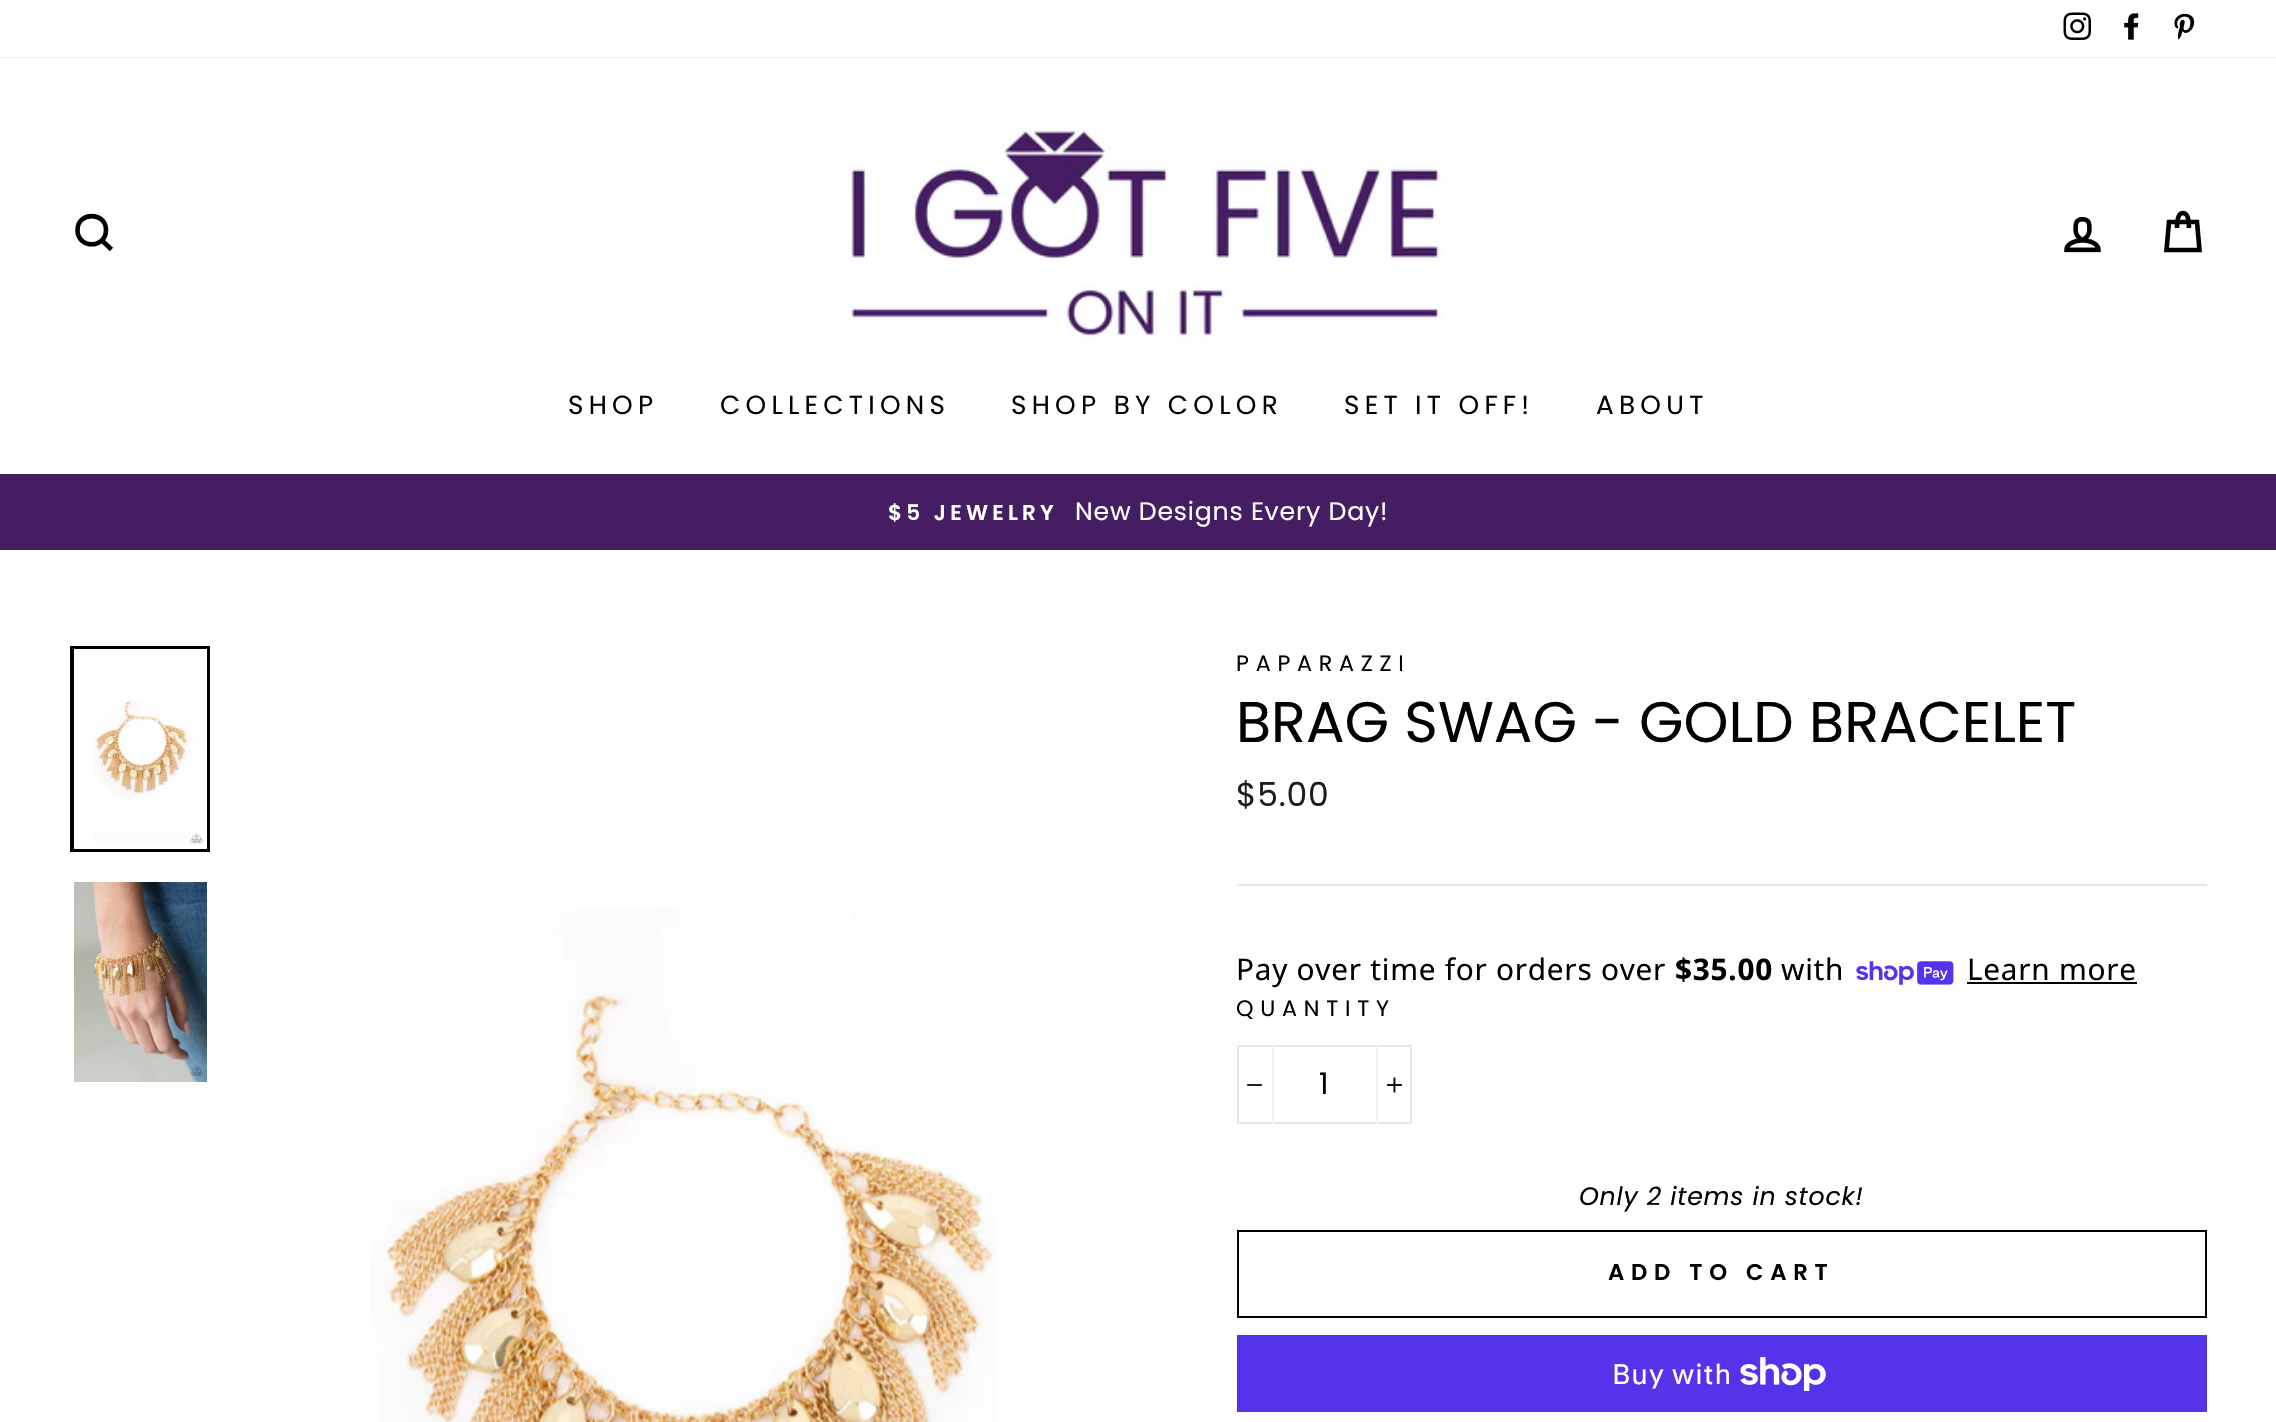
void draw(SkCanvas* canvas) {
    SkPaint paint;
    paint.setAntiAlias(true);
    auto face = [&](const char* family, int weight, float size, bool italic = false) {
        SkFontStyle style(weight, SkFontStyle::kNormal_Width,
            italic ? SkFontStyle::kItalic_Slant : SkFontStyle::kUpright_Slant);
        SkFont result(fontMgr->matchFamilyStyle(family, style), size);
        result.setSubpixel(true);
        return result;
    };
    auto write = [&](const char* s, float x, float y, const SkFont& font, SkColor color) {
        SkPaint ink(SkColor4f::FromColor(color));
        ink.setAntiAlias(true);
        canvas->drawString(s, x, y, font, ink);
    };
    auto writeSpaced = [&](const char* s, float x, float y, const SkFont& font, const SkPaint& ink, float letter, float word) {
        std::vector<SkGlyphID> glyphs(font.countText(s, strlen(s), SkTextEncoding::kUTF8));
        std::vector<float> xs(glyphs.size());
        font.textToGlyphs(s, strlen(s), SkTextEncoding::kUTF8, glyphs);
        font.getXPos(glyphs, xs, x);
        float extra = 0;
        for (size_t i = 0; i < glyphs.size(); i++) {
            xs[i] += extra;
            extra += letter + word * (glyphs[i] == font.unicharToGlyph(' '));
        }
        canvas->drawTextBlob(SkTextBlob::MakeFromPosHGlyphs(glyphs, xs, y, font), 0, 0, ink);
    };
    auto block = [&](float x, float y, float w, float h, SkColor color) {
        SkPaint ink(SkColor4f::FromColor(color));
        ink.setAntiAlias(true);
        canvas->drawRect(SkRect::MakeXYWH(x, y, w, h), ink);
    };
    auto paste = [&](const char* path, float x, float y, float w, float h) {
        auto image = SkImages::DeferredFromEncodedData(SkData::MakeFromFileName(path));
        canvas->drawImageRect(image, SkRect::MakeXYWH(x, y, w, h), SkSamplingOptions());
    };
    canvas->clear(SK_ColorWHITE);
    paste("pic1.png", 2063, 12, 28, 28);
    paste("pic2.png", 2124, 13, 15, 27);
    paste("pic3.png", 2174, 13, 21, 27);
    canvas->save();
    canvas->clipRect(SkRect::MakeXYWH(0, 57, 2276, 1));
    paint.setColor(SkColorSetARGB(51, 0, 0, 0));
    paint.setMaskFilter(SkMaskFilter::MakeBlur(kNormal_SkBlurStyle, 1));
    canvas->drawRect(SkRect::MakeXYWH(0, 58, 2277, 416), paint);
    paint.setMaskFilter(nullptr);
    canvas->restore();
    paint.setStyle(SkPaint::kStroke_Style);
    paint.setStrokeWidth(4.6f);
    paint.setColor(SK_ColorBLACK);
    canvas->drawPath(SkPathBuilder().moveTo(106, 230).cubicTo(106, 249, 77.5f, 249, 77.5f, 230).cubicTo(77.5f, 211.5f, 106, 211.5f, 106, 230).close().moveTo(111.5f, 249.5f).lineTo(102, 240.5f).detach(), paint);
    paste("pic4.png", 849, 128, 595, 213);
    paste("pic5.png", 2064, 216, 37, 37);
    canvas->drawPath(SkPathBuilder().moveTo(2177, 228).cubicTo(2177, 216, 2179.5f, 213, 2183, 213).cubicTo(2186.5f, 213, 2189, 216, 2189, 228).moveTo(2169, 222).lineTo(2197, 222).lineTo(2199.5f, 250).lineTo(2166.5f, 250).close().detach(), paint);
    auto kFont1 = face("Poppins", 400, 26.25f);
    paint.setStyle(SkPaint::kFill_Style);
    writeSpaced("SHOP", 568, 414, kFont1, paint, 5.25f, 0);
    writeSpaced("COLLECTIONS", 720, 414, kFont1, paint, 5.25f, 0);
    writeSpaced("SHOP BY COLOR", 1011, 414, kFont1, paint, 5.25f, 0);
    writeSpaced("SET IT OFF!", 1344, 414, kFont1, paint, 5.25f, 0);
    writeSpaced("ABOUT", 1596, 414, kFont1, paint, 5.25f, 0);
    block(0, 474, 2276, 76, SkColorSetRGB(69, 29, 98));
    auto kFont2 = face("Poppins", 600, 21.5f);
    paint.setColor(SK_ColorWHITE);
    writeSpaced("$5 JEWELRY", 888, 520, kFont2, paint, 4.25f, 0);
    auto kFont3 = face("Poppins", 400, 25.25f);
    writeSpaced("New Designs Every Day!", 1075, 520, kFont3, paint, 0.75f, 0);
    paint.setStyle(SkPaint::kStroke_Style);
    paint.setStrokeWidth(4);
    paint.setColor(SK_ColorBLACK);
    canvas->drawRect(SkRect::MakeXYWH(72, 648, 136, 202), paint);
    block(74, 649, 133, 200, SK_ColorWHITE);
    paste("pic6.png", 94, 699, 109, 146);
    paste("pic7.png", 74, 882, 133, 200);
    paste("pic8.png", 370, 907, 626, 515);
    auto kFont4 = face("Poppins", 400, 22.25f);
    paint.setStyle(SkPaint::kFill_Style);
    writeSpaced("PAPARAZZI", 1236, 671, kFont4, paint, 6.75f, 0);
    auto kFont5 = face("Poppins", 400, 57.25f);
    write("BRAG SWAG - GOLD BRACELET", 1236, 742, kFont5, SK_ColorBLACK);
    auto kFont6 = face("Poppins", 400, 33);
    paint.setColor(SkColorSetRGB(28, 29, 29));
    writeSpaced("$5.00", 1236, 806, kFont6, paint, 0.75f, 0);
    block(1237, 884, 970, 2, SkColorSetRGB(232, 232, 225));
    auto kFont7 = face("Noto Sans", 400, 29.75f);
    paint.setColor(SK_ColorBLACK);
    writeSpaced("Pay over time for orders over", 1236, 980, kFont7, paint, 0.75f, 0);
    auto kFont8 = face("Noto Sans", 700, 29.75f);
    writeSpaced("$35.00", 1675, 980, kFont8, paint, 0.75f, 0);
    writeSpaced("with", 1781, 980, kFont7, paint, 0.75f, 0);
    paste("pic9.png", 1856, 961, 98, 24);
    writeSpaced("Learn more", 1967, 980, kFont7, paint, 0.75f, 0);
    block(1967, 982, 170, 2, SK_ColorBLACK);
    writeSpaced("QUANTITY", 1236, 1016, kFont4, paint, 6.75f, 0);
    paint.setStyle(SkPaint::kStroke_Style);
    paint.setStrokeWidth(2);
    paint.setColor(SkColorSetRGB(232, 232, 225));
    canvas->drawRect(SkRect::MakeXYWH(1238, 1046, 173, 77), paint);
    block(1272, 1045, 2, 79, SkColorSetRGB(242, 242, 242));
    paste("pic10.png", 1247, 1084, 16, 2);
    auto kFont9 = face("Poppins", 400, 29.75f);
    paint.setStyle(SkPaint::kFill_Style);
    paint.setColor(SK_ColorBLACK);
    writeSpaced("1", 1319, 1094, kFont9, paint, 0.75f, 0);
    block(1376, 1045, 2, 79, SkColorSetRGB(242, 242, 242));
    paste("pic11.png", 1386, 1077, 17, 16);
    auto kFont10 = face("Poppins", 400, 25.25f, true);
    writeSpaced("Only 2 items in stock!", 1579, 1205, kFont10, paint, 0.75f, 0);
    paint.setStyle(SkPaint::kStroke_Style);
    canvas->drawRect(SkRect::MakeXYWH(1238, 1231, 968, 86), paint);
    auto kFont11 = face("Poppins", 600, 22.75f);
    paint.setStyle(SkPaint::kFill_Style);
    writeSpaced("ADD TO CART", 1608, 1280, kFont11, paint, 6.75f, 0);
    block(1237, 1335, 970, 77, SkColorSetRGB(84, 51, 235));
    auto kFont12 = face("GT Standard", 400, 28);
    paint.setColor(SK_ColorWHITE);
    writeSpaced("Buy with", 1612, 1384, kFont12, paint, 0.75f, 0);
    paste("pic12.png", 1740, 1357, 86, 34);
}
